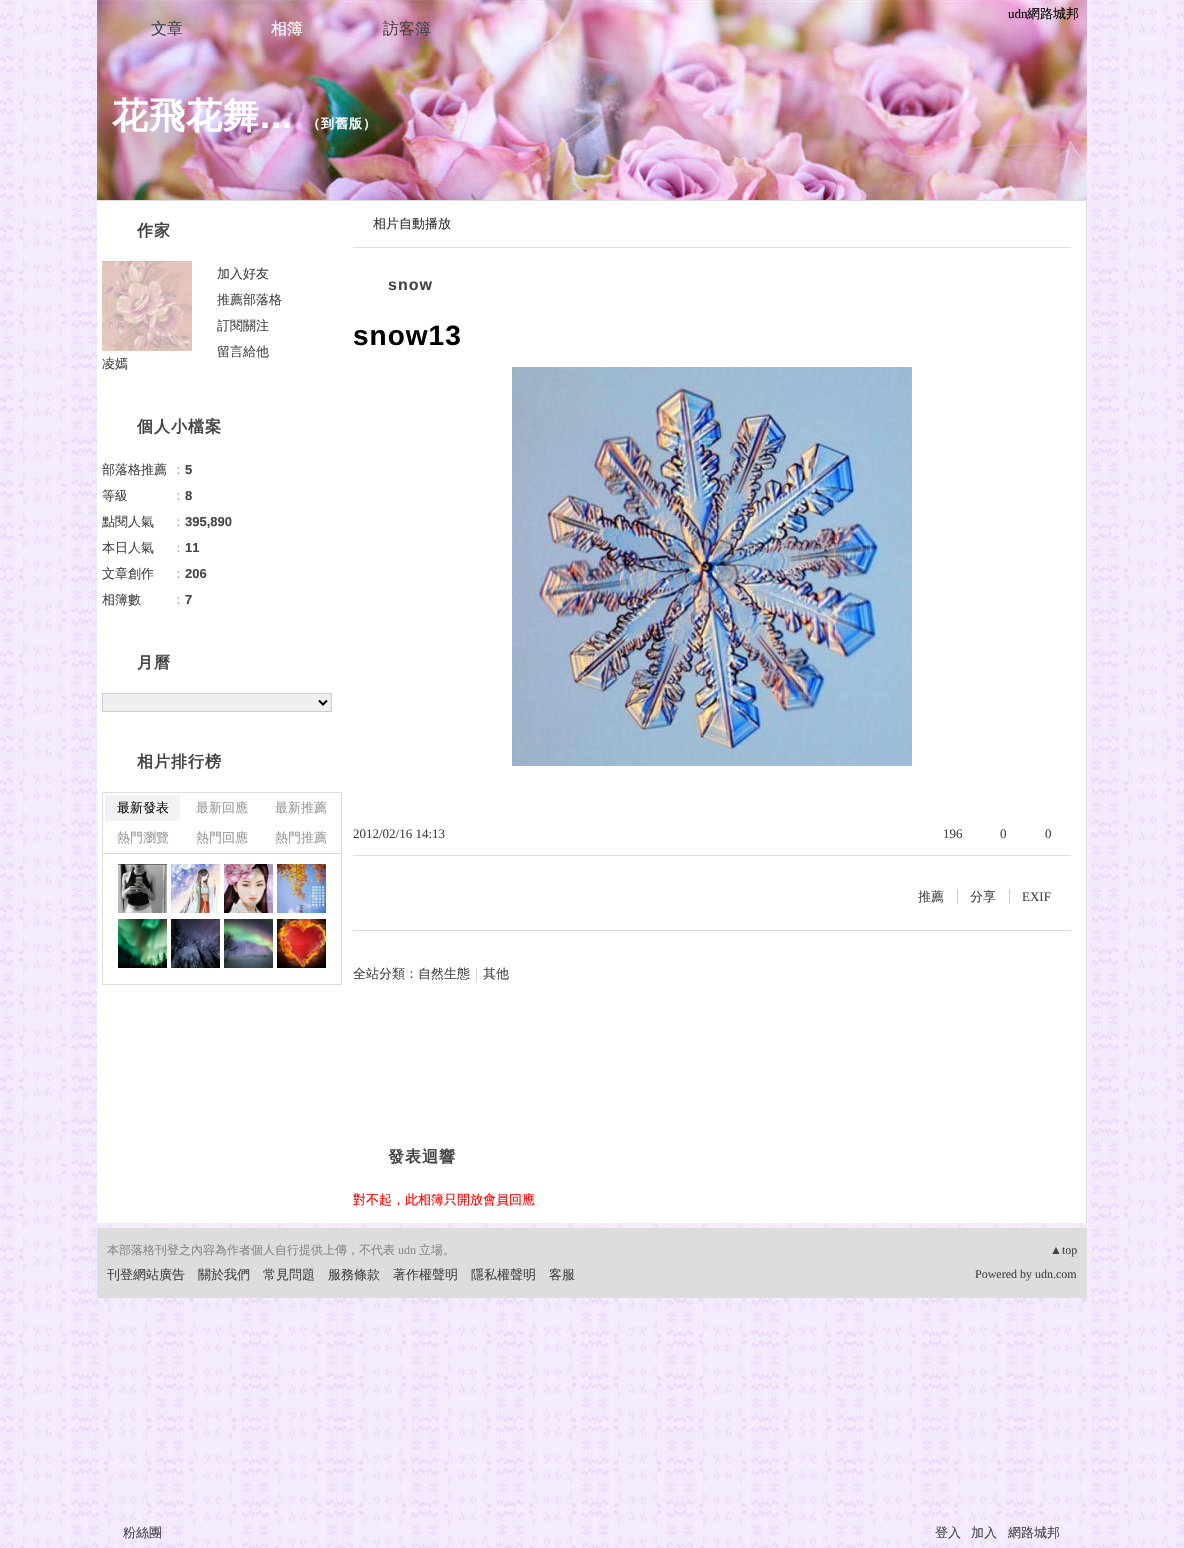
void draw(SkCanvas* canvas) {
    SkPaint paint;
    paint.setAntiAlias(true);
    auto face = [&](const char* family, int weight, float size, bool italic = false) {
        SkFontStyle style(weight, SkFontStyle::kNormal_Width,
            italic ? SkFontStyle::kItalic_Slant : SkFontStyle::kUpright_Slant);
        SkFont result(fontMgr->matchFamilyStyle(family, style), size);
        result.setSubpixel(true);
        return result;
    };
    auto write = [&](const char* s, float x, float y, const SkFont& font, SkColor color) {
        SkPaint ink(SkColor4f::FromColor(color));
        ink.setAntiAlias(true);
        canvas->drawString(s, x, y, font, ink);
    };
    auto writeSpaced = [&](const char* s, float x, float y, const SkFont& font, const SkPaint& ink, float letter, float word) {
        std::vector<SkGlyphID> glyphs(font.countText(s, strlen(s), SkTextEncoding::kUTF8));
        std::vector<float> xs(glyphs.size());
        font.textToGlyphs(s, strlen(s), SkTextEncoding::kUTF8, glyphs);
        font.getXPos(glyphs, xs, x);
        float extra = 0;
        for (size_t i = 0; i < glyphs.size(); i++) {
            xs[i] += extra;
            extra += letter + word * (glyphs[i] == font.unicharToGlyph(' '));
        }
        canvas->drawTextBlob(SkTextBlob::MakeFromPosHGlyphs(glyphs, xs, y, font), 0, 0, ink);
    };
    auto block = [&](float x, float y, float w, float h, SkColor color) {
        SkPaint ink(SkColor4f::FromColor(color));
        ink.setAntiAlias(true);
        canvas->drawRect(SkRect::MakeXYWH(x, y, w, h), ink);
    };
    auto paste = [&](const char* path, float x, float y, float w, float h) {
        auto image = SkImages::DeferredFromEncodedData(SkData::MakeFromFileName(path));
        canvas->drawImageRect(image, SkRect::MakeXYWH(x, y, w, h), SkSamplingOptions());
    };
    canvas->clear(SK_ColorWHITE);
    paste("pic1.png", 0, 0, 1184, 1548);
    paste("pic2.png", 97, 0, 990, 200);
    auto kFont1 = face("Liberation Serif", 400, 13);
    write("udn", 1008, 18, kFont1, SK_ColorBLACK);
    auto kFont2 = face("WenQuanYi Zen Hei", 500, 13);
    write("網路城邦", 1027, 18, kFont2, SK_ColorBLACK);
    auto kFont3 = face("WenQuanYi Zen Hei", 500, 16);
    write("文章", 151, 34, kFont3, SkColorSetRGB(68, 68, 68));
    write("相簿", 271, 34, kFont3, SK_ColorWHITE);
    write("訪客簿", 383, 34, kFont3, SkColorSetRGB(68, 68, 68));
    block(97, 200, 990, 1, SkColorSetRGB(221, 221, 221));
    auto kFont4 = face("WenQuanYi Zen Hei", 700, 36);
    paint.setColor(SK_ColorWHITE);
    writeSpaced("花飛花舞", 112, 128, kFont4, paint, 1, 0);
    auto kFont5 = face("Liberation Sans", 700, 36);
    writeSpaced("...", 260, 128, kFont5, paint, 1, 0);
    auto kFont6 = face("WenQuanYi Zen Hei", 700, 13);
    writeSpaced("（到舊版）", 307, 128, kFont6, paint, 1, 0);
    block(97, 201, 989, 1022, SK_ColorWHITE);
    auto kFont7 = face("WenQuanYi Zen Hei", 700, 16);
    paint.setColor(SkColorSetRGB(68, 68, 68));
    writeSpaced("作家", 137, 236, kFont7, paint, 1, 0);
    write("加入好友", 217, 278, kFont2, SkColorSetRGB(68, 68, 68));
    write("推薦部落格", 217, 304, kFont2, SkColorSetRGB(68, 68, 68));
    write("訂閱關注", 217, 330, kFont2, SkColorSetRGB(68, 68, 68));
    write("留言給他", 217, 356, kFont2, SkColorSetRGB(68, 68, 68));
    paste("pic3.png", 102, 261, 90, 90);
    write("凌嫣", 102, 368, kFont2, SkColorSetRGB(68, 68, 68));
    writeSpaced("個人小檔案", 137, 432, kFont7, paint, 1, 0);
    write("部落格推薦", 102, 474, kFont2, SkColorSetRGB(68, 68, 68));
    write("：", 172, 474, kFont2, SkColorSetRGB(170, 170, 170));
    auto kFont8 = face("Liberation Sans", 700, 13);
    write("5", 185, 474, kFont8, SkColorSetRGB(68, 68, 68));
    write("等級", 102, 500, kFont2, SkColorSetRGB(68, 68, 68));
    write("：", 172, 500, kFont2, SkColorSetRGB(170, 170, 170));
    write("8", 185, 500, kFont8, SkColorSetRGB(68, 68, 68));
    write("點閱人氣", 102, 526, kFont2, SkColorSetRGB(68, 68, 68));
    write("：", 172, 526, kFont2, SkColorSetRGB(170, 170, 170));
    write("395,890", 185, 526, kFont8, SkColorSetRGB(68, 68, 68));
    write("本日人氣", 102, 552, kFont2, SkColorSetRGB(68, 68, 68));
    write("：", 172, 552, kFont2, SkColorSetRGB(170, 170, 170));
    write("11", 185, 552, kFont8, SkColorSetRGB(68, 68, 68));
    write("文章創作", 102, 578, kFont2, SkColorSetRGB(68, 68, 68));
    write("：", 172, 578, kFont2, SkColorSetRGB(170, 170, 170));
    write("206", 185, 578, kFont8, SkColorSetRGB(68, 68, 68));
    write("相簿數", 102, 604, kFont2, SkColorSetRGB(68, 68, 68));
    write("：", 172, 604, kFont2, SkColorSetRGB(170, 170, 170));
    write("7", 185, 604, kFont8, SkColorSetRGB(68, 68, 68));
    writeSpaced("月曆", 137, 668, kFont7, paint, 1, 0);
    paint.setColor(SkColorSetRGB(239, 239, 239));
    canvas->drawRect(SkRect::MakeXYWH(102.5f, 693.5f, 229, 18), paint);
    paint.setStyle(SkPaint::kStroke_Style);
    paint.setStrokeWidth(1);
    paint.setColor(SkColorSetRGB(204, 204, 204));
    canvas->drawRect(SkRect::MakeXYWH(102.5f, 693.5f, 229, 18), paint);
    paint.setStrokeWidth(2);
    paint.setColor(SK_ColorBLACK);
    canvas->drawPath(SkPathBuilder().moveTo(319, 700.5f).lineTo(323, 704.5f).lineTo(327, 700.5f).detach(), paint);
    paint.setStyle(SkPaint::kFill_Style);
    paint.setColor(SkColorSetRGB(68, 68, 68));
    writeSpaced("相片排行榜", 137, 767, kFont7, paint, 1, 0);
    paint.setStyle(SkPaint::kStroke_Style);
    paint.setStrokeWidth(1);
    paint.setColor(SkColorSetRGB(221, 221, 221));
    canvas->drawRect(SkRect::MakeXYWH(102.5f, 792.5f, 239, 61), paint);
    block(105, 795, 75, 26, SkColorSetRGB(242, 242, 242));
    write("最新發表", 117, 812, kFont2, SkColorSetRGB(17, 17, 17));
    write("最新回應", 196, 812, kFont2, SkColorSetRGB(153, 153, 153));
    write("最新推薦", 275, 812, kFont2, SkColorSetRGB(153, 153, 153));
    write("熱門瀏覽", 117, 842, kFont2, SkColorSetRGB(153, 153, 153));
    write("熱門回應", 196, 842, kFont2, SkColorSetRGB(153, 153, 153));
    write("熱門推薦", 275, 842, kFont2, SkColorSetRGB(153, 153, 153));
    block(341, 854, 1, 131, SkColorSetRGB(221, 221, 221));
    block(102, 984, 240, 1, SkColorSetRGB(221, 221, 221));
    block(102, 854, 1, 131, SkColorSetRGB(221, 221, 221));
    paste("pic4.png", 118, 864, 49, 49);
    paste("pic5.png", 171, 864, 49, 49);
    paste("pic6.png", 224, 864, 49, 49);
    paste("pic7.png", 277, 864, 49, 49);
    paste("pic8.png", 118, 919, 49, 49);
    paste("pic9.png", 171, 919, 49, 49);
    paste("pic10.png", 224, 919, 49, 49);
    paste("pic11.png", 277, 919, 49, 49);
    block(1086, 201, 1, 1022, SkColorSetRGB(221, 221, 221));
    block(353, 247, 718, 1, SkColorSetRGB(221, 221, 221));
    write("相片自動播放", 373, 228, kFont2, SkColorSetRGB(51, 51, 51));
    auto kFont9 = face("Liberation Sans", 700, 16);
    paint.setStyle(SkPaint::kFill_Style);
    paint.setColor(SkColorSetRGB(68, 68, 68));
    writeSpaced("snow", 388, 290, kFont9, paint, 1, 0);
    auto kFont10 = face("Liberation Sans", 700, 28);
    paint.setColor(SK_ColorBLACK);
    writeSpaced("snow13", 353, 345, kFont10, paint, 1, 0);
    paste("pic12.png", 512, 367, 400, 399);
    write("2012/02/16 14:13", 353, 838, kFont1, SkColorSetRGB(68, 68, 68));
    write("196", 943, 838, kFont1, SkColorSetRGB(68, 68, 68));
    write("0", 1000, 838, kFont1, SkColorSetRGB(68, 68, 68));
    write("0", 1045, 838, kFont1, SkColorSetRGB(68, 68, 68));
    block(353, 855, 718, 1, SkColorSetRGB(221, 221, 221));
    write("推薦", 918, 901, kFont2, SkColorSetRGB(68, 68, 68));
    block(957, 889, 1, 15, SkColorSetRGB(204, 204, 204));
    write("分享", 970, 901, kFont2, SkColorSetRGB(68, 68, 68));
    block(1009, 889, 1, 15, SkColorSetRGB(204, 204, 204));
    write("EXIF", 1022, 901, kFont1, SkColorSetRGB(68, 68, 68));
    block(353, 930, 718, 1, SkColorSetRGB(221, 221, 221));
    write("全站分類：自然生態", 353, 978, kFont2, SkColorSetRGB(68, 68, 68));
    write("｜", 470, 978, kFont2, SkColorSetRGB(204, 204, 204));
    write("其他", 483, 978, kFont2, SkColorSetRGB(68, 68, 68));
    paint.setColor(SkColorSetRGB(68, 68, 68));
    writeSpaced("發表迴響", 388, 1162, kFont7, paint, 1, 0);
    write("對不起，此相簿只開放會員回應", 353, 1204, kFont2, SkColorSetRGB(255, 0, 0));
    block(97, 1228, 990, 70, SkColorSetRGB(221, 221, 221));
    auto kFont11 = face("WenQuanYi Zen Hei", 500, 12);
    write("本部落格刊登之內容為作者個人自行提供上傳，不代表", 107, 1254, kFont11, SkColorSetRGB(136, 136, 136));
    auto kFont12 = face("Liberation Serif", 400, 12);
    write("udn", 398, 1254, kFont12, SkColorSetRGB(136, 136, 136));
    write("立場。", 419, 1254, kFont11, SkColorSetRGB(136, 136, 136));
    write("▲top", 1050, 1254, kFont12, SkColorSetRGB(68, 68, 68));
    write("刊登網站廣告", 107, 1279, kFont2, SkColorSetRGB(68, 68, 68));
    write("關於我們", 198, 1279, kFont2, SkColorSetRGB(68, 68, 68));
    write("常見問題", 263, 1279, kFont2, SkColorSetRGB(68, 68, 68));
    write("服務條款", 328, 1279, kFont2, SkColorSetRGB(68, 68, 68));
    write("著作權聲明", 393, 1279, kFont2, SkColorSetRGB(68, 68, 68));
    write("隱私權聲明", 471, 1279, kFont2, SkColorSetRGB(68, 68, 68));
    write("客服", 549, 1279, kFont2, SkColorSetRGB(68, 68, 68));
    write("Powered by udn.com", 975, 1278, kFont12, SkColorSetRGB(68, 68, 68));
    write("粉絲團", 123, 1537, kFont2, SkColorSetRGB(68, 68, 68));
    write("登入", 935, 1537, kFont2, SkColorSetRGB(68, 68, 68));
    write("加入", 971, 1537, kFont2, SkColorSetRGB(68, 68, 68));
    write("網路城邦", 1008, 1537, kFont2, SkColorSetRGB(68, 68, 68));
}
